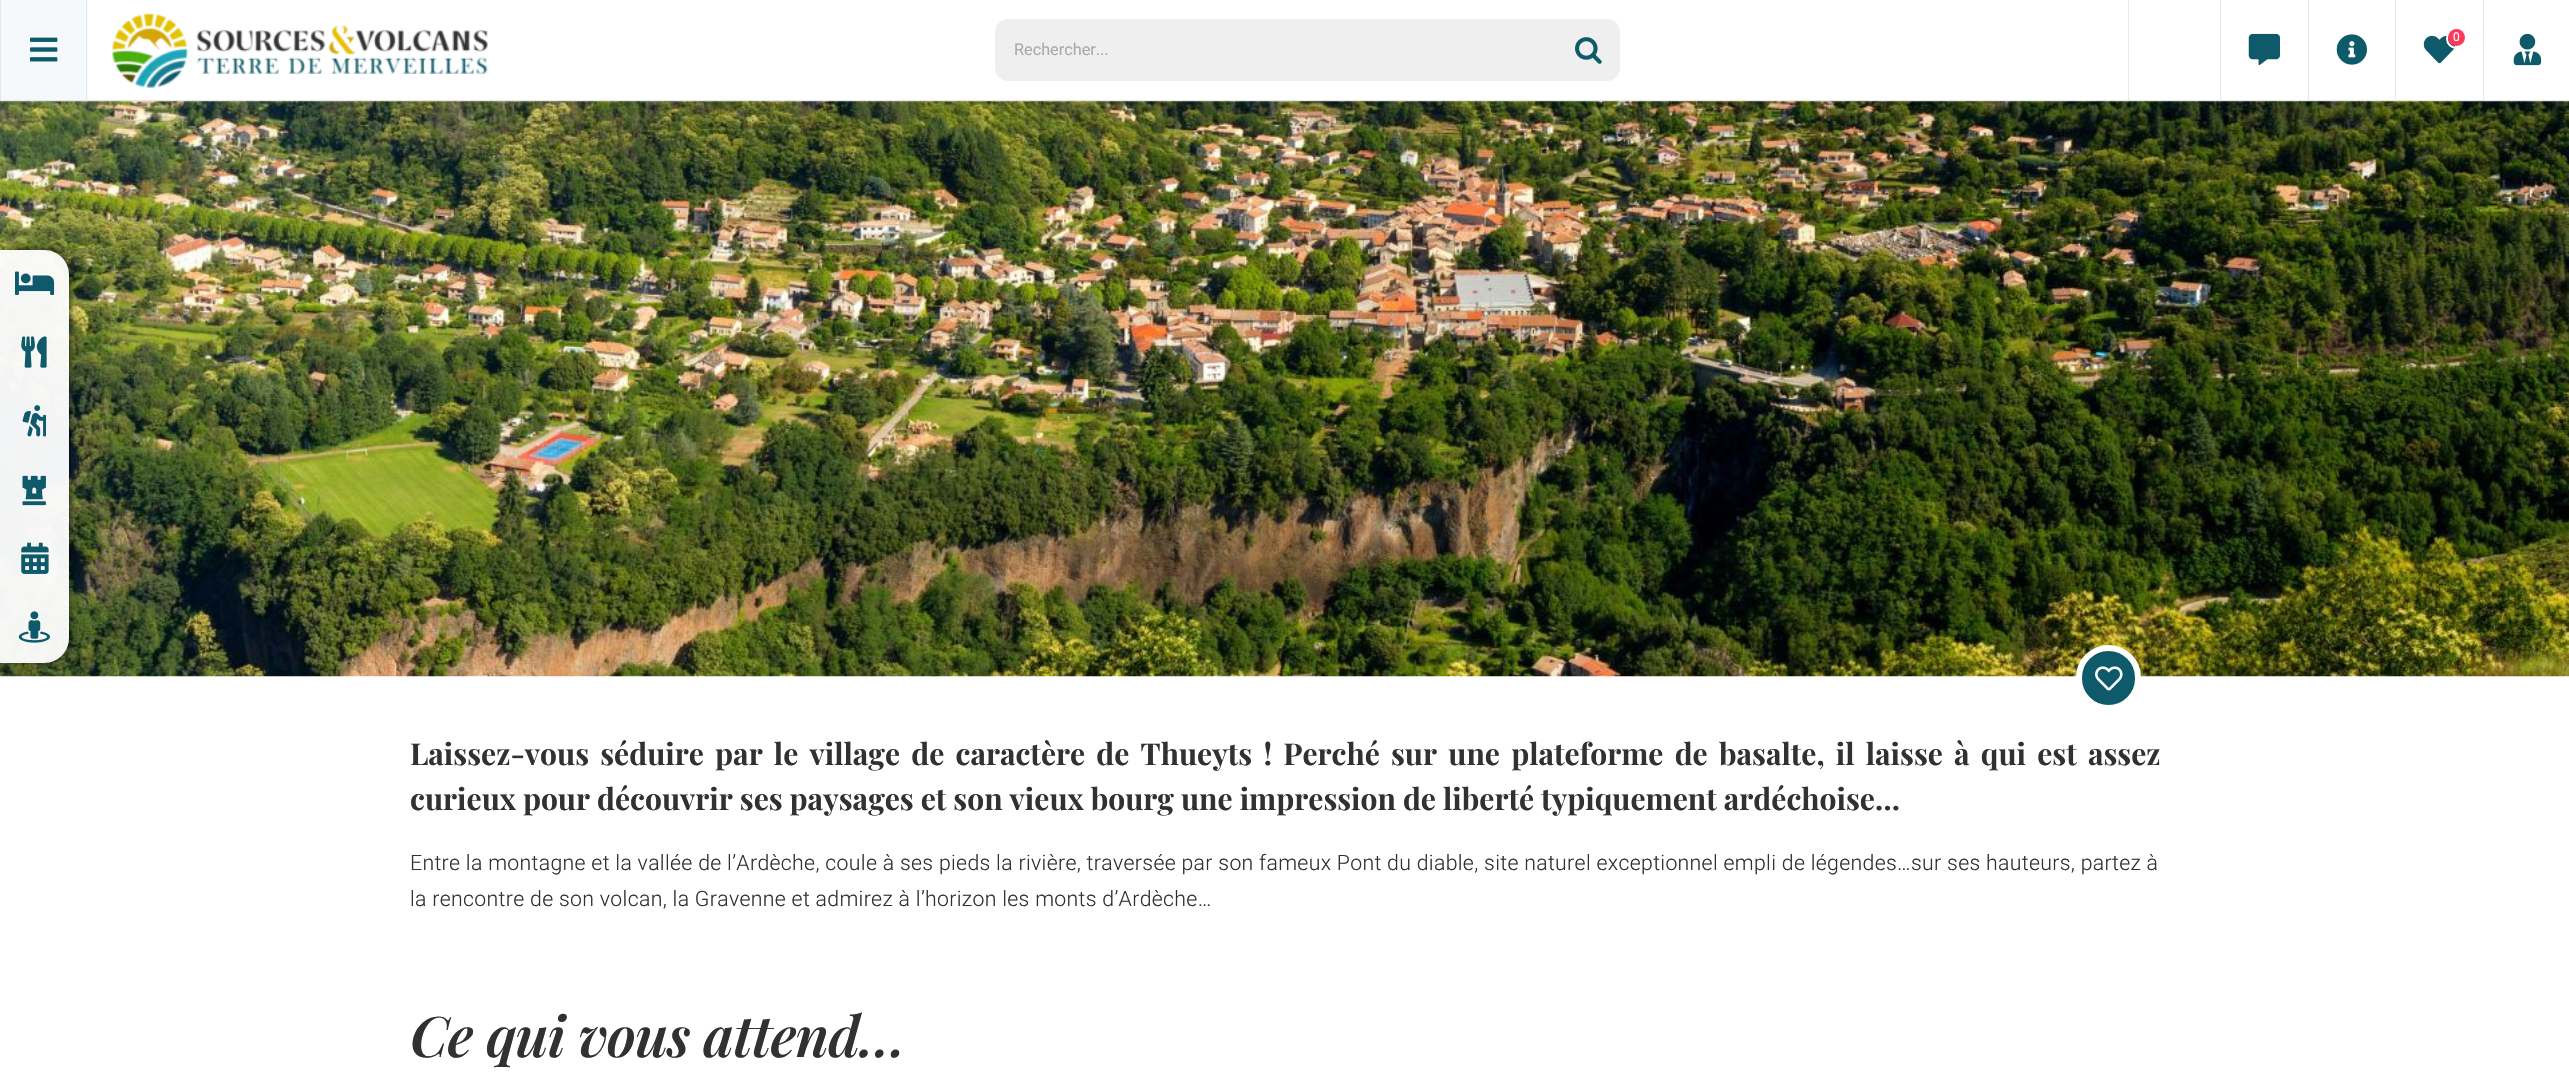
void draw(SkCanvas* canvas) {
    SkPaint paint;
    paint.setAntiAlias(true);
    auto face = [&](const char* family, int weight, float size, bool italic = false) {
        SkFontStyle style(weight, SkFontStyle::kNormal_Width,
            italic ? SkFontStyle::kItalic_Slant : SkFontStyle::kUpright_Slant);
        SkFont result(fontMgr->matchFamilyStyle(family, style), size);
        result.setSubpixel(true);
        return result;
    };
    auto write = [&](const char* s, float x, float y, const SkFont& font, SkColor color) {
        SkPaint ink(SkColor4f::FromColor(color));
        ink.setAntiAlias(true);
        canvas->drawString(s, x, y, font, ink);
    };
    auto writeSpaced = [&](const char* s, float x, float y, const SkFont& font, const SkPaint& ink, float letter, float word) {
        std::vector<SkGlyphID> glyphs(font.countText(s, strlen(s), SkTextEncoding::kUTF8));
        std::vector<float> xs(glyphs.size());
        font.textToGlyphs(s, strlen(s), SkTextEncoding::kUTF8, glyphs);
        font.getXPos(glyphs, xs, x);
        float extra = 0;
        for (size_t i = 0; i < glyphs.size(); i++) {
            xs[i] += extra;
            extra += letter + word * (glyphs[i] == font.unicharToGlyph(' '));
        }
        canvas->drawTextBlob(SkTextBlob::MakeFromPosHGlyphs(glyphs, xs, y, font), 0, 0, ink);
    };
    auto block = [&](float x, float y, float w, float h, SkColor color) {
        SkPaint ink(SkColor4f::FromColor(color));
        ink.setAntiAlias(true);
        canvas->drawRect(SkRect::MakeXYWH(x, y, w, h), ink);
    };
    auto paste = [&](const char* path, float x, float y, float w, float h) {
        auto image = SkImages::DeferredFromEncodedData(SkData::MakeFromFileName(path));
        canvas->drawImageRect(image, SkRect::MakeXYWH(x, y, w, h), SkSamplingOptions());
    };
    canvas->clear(SK_ColorWHITE);
    paste("pic14.png", 0, 101, 2569, 576);
    canvas->save();
    canvas->clipPath(SkPathBuilder(SkPathFillType::kEvenOdd).moveTo(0, 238).lineTo(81, 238).lineTo(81, 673).lineTo(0, 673).close().moveTo(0, 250).lineTo(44, 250).cubicTo(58, 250, 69, 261, 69, 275).lineTo(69, 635).cubicTo(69, 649, 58, 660, 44, 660).lineTo(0, 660).close().detach(), true);
    paint.setColor(SkColorSetARGB(133, 0, 0, 0));
    paint.setMaskFilter(SkMaskFilter::MakeBlur(kNormal_SkBlurStyle, 3));
    canvas->drawRoundRect(SkRect::MakeXYWH(-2, 248, 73, 415), 28, 28, paint);
    paint.setMaskFilter(nullptr);
    canvas->restore();
    paint.setColor(SkColorSetARGB(242, 255, 255, 255));
    canvas->drawPath(SkPathBuilder().moveTo(0, 250).lineTo(44, 250).cubicTo(58, 250, 69, 261, 69, 275).lineTo(69, 319).lineTo(0, 319).close().detach(), paint);
    paste("pic1.png", 15, 271, 40, 24);
    block(0, 319, 69, 69, SkColorSetARGB(242, 255, 255, 255));
    paste("pic2.png", 21, 336, 26, 32);
    block(0, 388, 69, 68, SkColorSetARGB(242, 255, 255, 255));
    paste("pic3.png", 22, 405, 24, 32);
    block(0, 456, 69, 69, SkColorSetARGB(242, 255, 255, 255));
    paste("pic4.png", 22, 475, 24, 31);
    block(0, 525, 69, 69, SkColorSetARGB(242, 255, 255, 255));
    paste("pic5.png", 21, 542, 28, 32);
    canvas->drawPath(SkPathBuilder().moveTo(0, 594).lineTo(69, 594).lineTo(69, 638).cubicTo(69, 652, 58, 663, 44, 663).lineTo(0, 663).close().detach(), paint);
    paste("pic6.png", 18, 611, 32, 32);
    block(0, 100, 2569, 1, SkColorSetRGB(229, 229, 229));
    block(1, 0, 87, 100, SkColorSetRGB(246, 249, 252));
    block(86, 0, 1, 100, SkColorSetRGB(227, 233, 239));
    block(0, 0, 1, 100, SkColorSetRGB(227, 233, 239));
    paste("pic7.png", 30, 37, 28, 25);
    paste("pic8.png", 112, 13, 376, 75);
    block(2128, 0, 1, 100, SkColorSetRGB(227, 233, 239));
    block(2220, 0, 1, 100, SkColorSetRGB(227, 233, 239));
    paste("pic9.png", 2248, 33, 32, 33);
    block(2308, 0, 1, 100, SkColorSetRGB(227, 233, 239));
    paste("pic10.png", 2336, 34, 31, 31);
    block(2395, 0, 1, 100, SkColorSetRGB(227, 233, 239));
    paste("pic11.png", 2423, 35, 32, 29);
    paint.setStyle(SkPaint::kStroke_Style);
    paint.setStrokeWidth(2);
    paint.setColor(SK_ColorWHITE);
    canvas->drawRoundRect(SkRect::MakeXYWH(2447, 29, 20, 19), 9.5f, 9.5f, paint);
    paint.setStyle(SkPaint::kFill_Style);
    paint.setColor(SkColorSetRGB(255, 56, 92));
    canvas->drawCircle(2456.5f, 37.5f, 8.5f, paint);
    auto kFont1 = face("Roboto", 400, 12);
    write("0", 2453, 41, kFont1, SK_ColorWHITE);
    block(2483, 0, 1, 100, SkColorSetRGB(227, 233, 239));
    paste("pic12.png", 2513, 33, 29, 33);
    paint.setColor(SkColorSetRGB(239, 239, 239));
    canvas->drawPath(SkPathBuilder().moveTo(1008, 19).lineTo(1575, 19).lineTo(1575, 81).lineTo(1008, 81).cubicTo(1001, 81, 995, 75, 995, 68).lineTo(995, 32).cubicTo(995, 25, 1001, 19, 1008, 19).close().detach(), paint);
    auto kFont2 = face("Roboto", 400, 16.25f);
    write("Rechercher...", 1014, 55, kFont2, SkColorSetRGB(170, 169, 169));
    canvas->drawPath(SkPathBuilder().moveTo(1575, 19).lineTo(1607, 19).cubicTo(1614, 19, 1620, 25, 1620, 32).lineTo(1620, 68).cubicTo(1620, 75, 1614, 81, 1607, 81).lineTo(1575, 81).close().detach(), paint);
    paste("pic13.png", 1575, 37, 27, 27);
    paint.setColor(SkColorSetRGB(14, 90, 106));
    canvas->drawRoundRect(SkRect::MakeXYWH(2079, 648, 59, 60), 29.5f, 29.5f, paint);
    paint.setStyle(SkPaint::kStroke_Style);
    paint.setStrokeWidth(6);
    paint.setColor(SK_ColorWHITE);
    canvas->drawRoundRect(SkRect::MakeXYWH(2079, 648, 59, 60), 29.5f, 29.5f, paint);
    paste("pic15.png", 2095, 666, 28, 25);
    auto kFont3 = face("Playfair Display", 700, 30);
    paint.setStyle(SkPaint::kFill_Style);
    paint.setColor(SkColorSetRGB(49, 49, 49));
    writeSpaced("Laissez-vous séduire par le village de caractère de Thueyts ! Perché sur une plateforme de basalte, il laisse à qui est assez", 410, 765, kFont3, paint, 0, 4.2f);
    write("curieux pour découvrir ses paysages et son vieux bourg une impression de liberté typiquement ardéchoise…", 410, 810, kFont3, SkColorSetRGB(49, 49, 49));
    auto kFont4 = face("Roboto", 300, 21.25f);
    writeSpaced("Entre la montagne et la vallée de l’Ardèche, coule à ses pieds la rivière, traversée par son fameux Pont du diable, site naturel exceptionnel empli de légendes…sur ses hauteurs, partez à", 410, 870, kFont4, paint, 0.32f, 0);
    writeSpaced("la rencontre de son volcan, la Gravenne et admirez à l’horizon les monts d’Ardèche…", 410, 906, kFont4, paint, 0.32f, 0);
    auto kFont5 = face("Playfair Display", 600, 56.25f, true);
    writeSpaced("Ce qui vous attend…", 410, 1057, kFont5, paint, -0.8f, 0);
}
